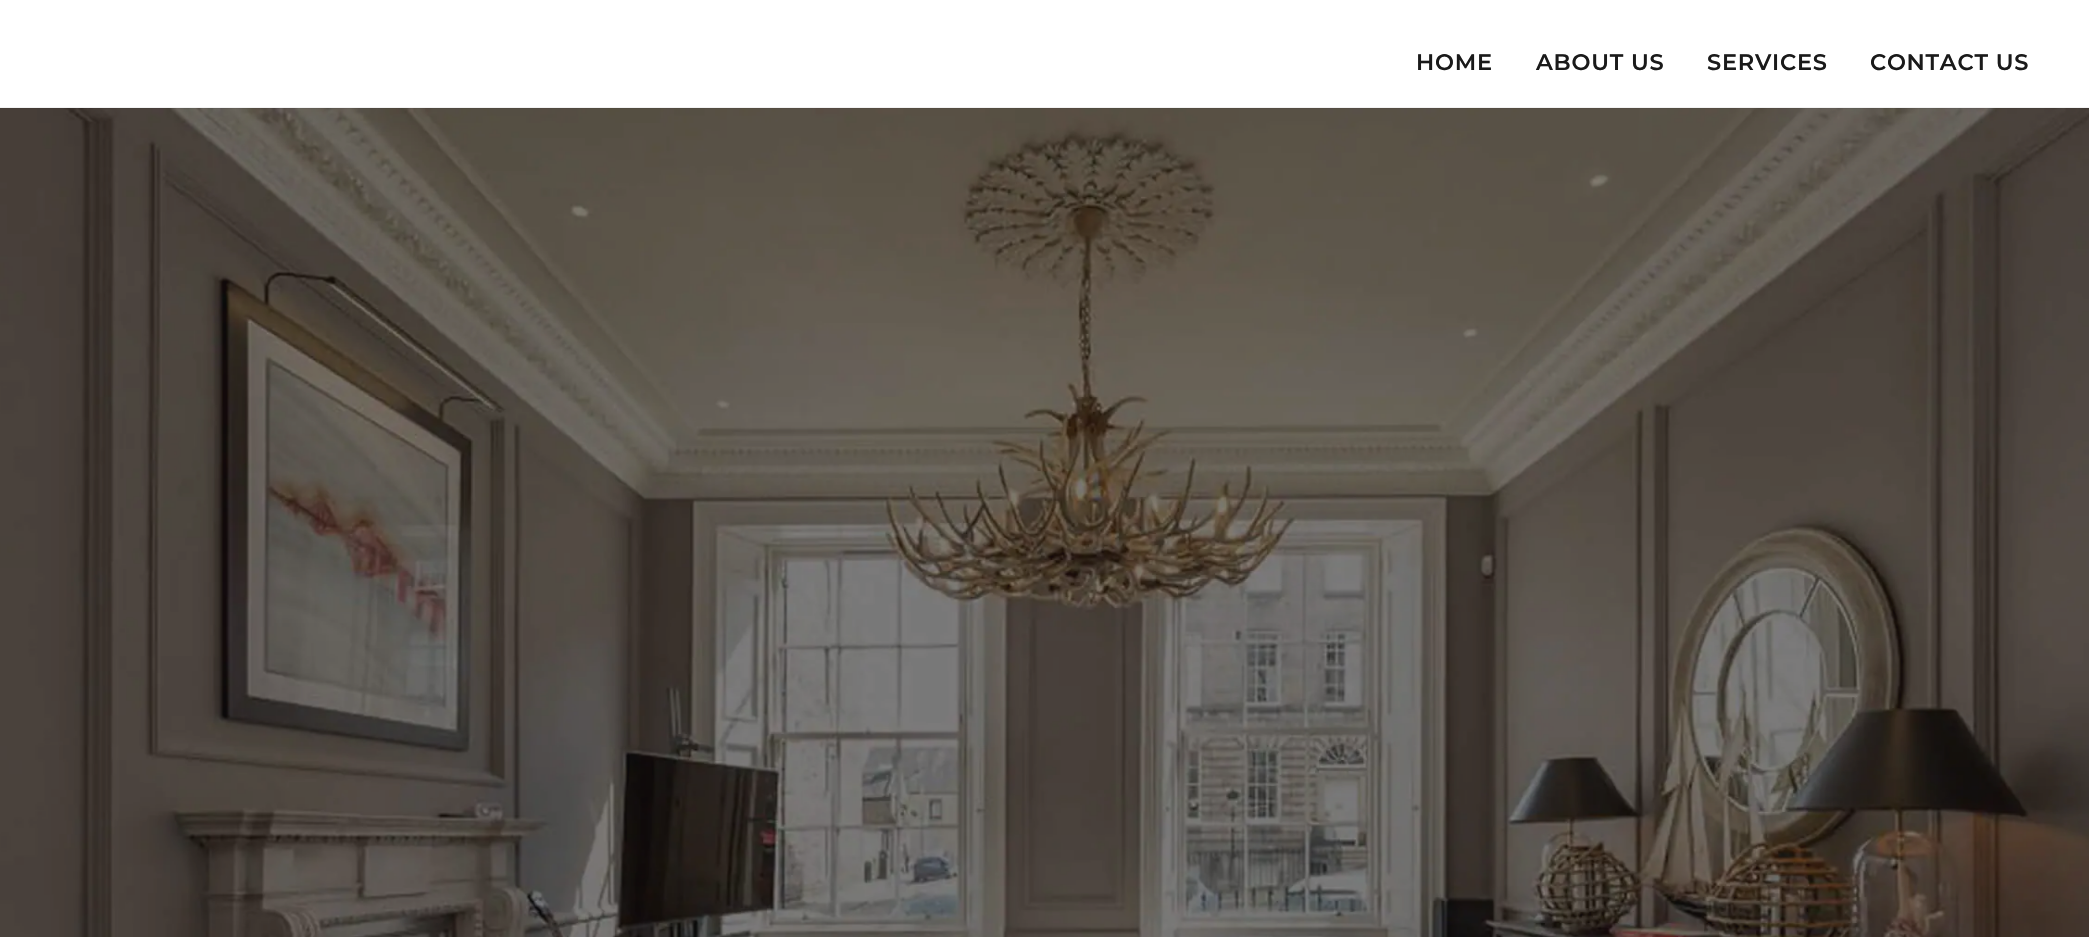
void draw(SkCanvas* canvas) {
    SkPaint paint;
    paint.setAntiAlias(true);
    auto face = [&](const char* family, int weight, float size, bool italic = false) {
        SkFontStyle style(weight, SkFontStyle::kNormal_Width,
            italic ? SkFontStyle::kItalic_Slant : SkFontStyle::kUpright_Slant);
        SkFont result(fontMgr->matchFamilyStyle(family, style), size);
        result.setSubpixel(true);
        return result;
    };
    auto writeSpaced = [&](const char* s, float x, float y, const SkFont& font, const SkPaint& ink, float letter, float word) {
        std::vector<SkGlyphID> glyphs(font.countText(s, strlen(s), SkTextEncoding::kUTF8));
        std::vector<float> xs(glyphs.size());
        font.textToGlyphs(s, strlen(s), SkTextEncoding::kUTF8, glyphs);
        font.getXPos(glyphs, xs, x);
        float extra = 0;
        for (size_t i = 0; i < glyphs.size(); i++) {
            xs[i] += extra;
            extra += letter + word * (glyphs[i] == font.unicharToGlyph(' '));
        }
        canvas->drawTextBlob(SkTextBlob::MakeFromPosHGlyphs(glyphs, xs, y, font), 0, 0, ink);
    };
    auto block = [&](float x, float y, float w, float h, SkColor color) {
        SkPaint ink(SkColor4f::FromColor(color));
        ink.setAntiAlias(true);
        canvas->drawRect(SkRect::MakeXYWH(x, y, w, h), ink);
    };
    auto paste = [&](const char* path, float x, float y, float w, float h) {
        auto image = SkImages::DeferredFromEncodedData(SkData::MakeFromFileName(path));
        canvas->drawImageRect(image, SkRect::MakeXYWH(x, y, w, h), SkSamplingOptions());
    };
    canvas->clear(SK_ColorWHITE);
    paste("pic1.png", 0, 108, 2089, 829);
    block(0, 107, 2089, 2, SkColorSetARGB(13, 0, 0, 0));
    auto kFont1 = face("Montserrat", 600, 22.5f);
    paint.setColor(SkColorSetRGB(26, 26, 26));
    writeSpaced("HOME", 1416, 70, kFont1, paint, 0.75f, 0);
    writeSpaced("ABOUT US", 1536, 70, kFont1, paint, 0.75f, 0);
    writeSpaced("SERVICES", 1707, 70, kFont1, paint, 0.75f, 0);
    writeSpaced("CONTACT US", 1870, 70, kFont1, paint, 0.75f, 0);
}
